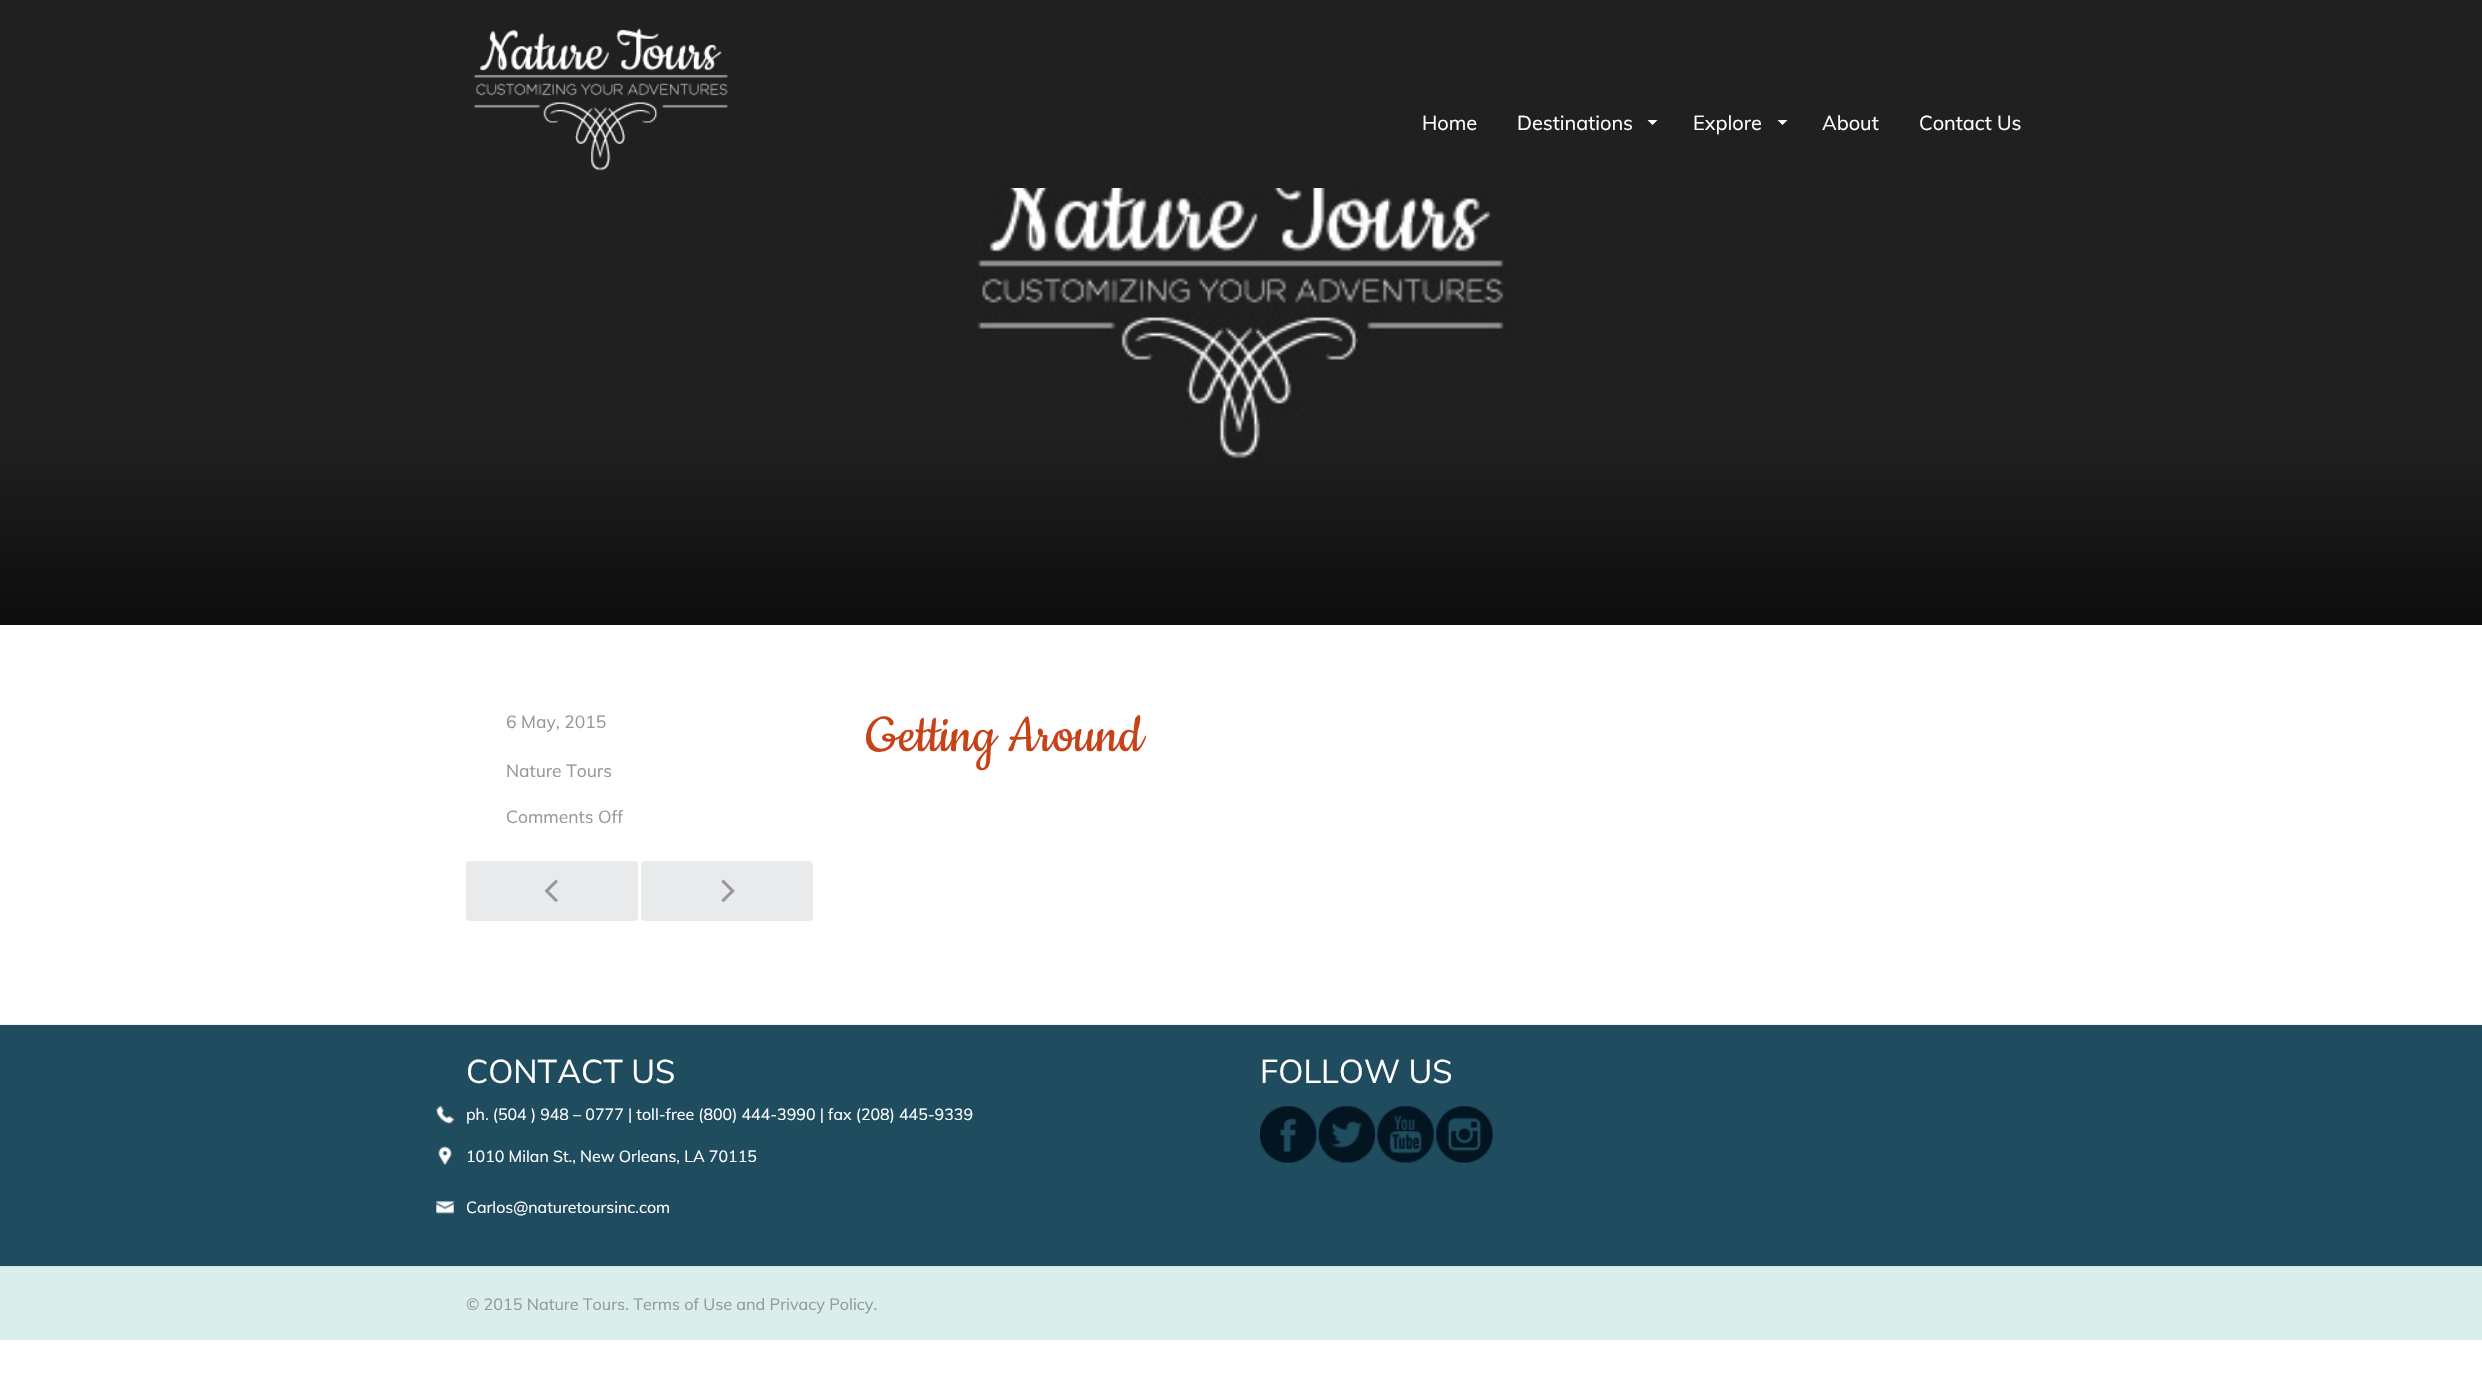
void draw(SkCanvas* canvas) {
    SkPaint paint;
    paint.setAntiAlias(true);
    auto face = [&](const char* family, int weight, float size, bool italic = false) {
        SkFontStyle style(weight, SkFontStyle::kNormal_Width,
            italic ? SkFontStyle::kItalic_Slant : SkFontStyle::kUpright_Slant);
        SkFont result(fontMgr->matchFamilyStyle(family, style), size);
        result.setSubpixel(true);
        return result;
    };
    auto write = [&](const char* s, float x, float y, const SkFont& font, SkColor color) {
        SkPaint ink(SkColor4f::FromColor(color));
        ink.setAntiAlias(true);
        canvas->drawString(s, x, y, font, ink);
    };
    auto block = [&](float x, float y, float w, float h, SkColor color) {
        SkPaint ink(SkColor4f::FromColor(color));
        ink.setAntiAlias(true);
        canvas->drawRect(SkRect::MakeXYWH(x, y, w, h), ink);
    };
    auto card = [&](float x, float y, float w, float h, float radius, SkColor color) {
        SkPaint ink(SkColor4f::FromColor(color));
        ink.setAntiAlias(true);
        canvas->drawRoundRect(SkRect::MakeXYWH(x, y, w, h), radius, radius, ink);
    };
    auto paste = [&](const char* path, float x, float y, float w, float h) {
        auto image = SkImages::DeferredFromEncodedData(SkData::MakeFromFileName(path));
        canvas->drawImageRect(image, SkRect::MakeXYWH(x, y, w, h), SkSamplingOptions());
    };
    canvas->clear(SK_ColorWHITE);
    block(0, 0, 2482, 188, SkColorSetRGB(32, 32, 32));
    paste("pic1.png", 473, 28, 255, 143);
    auto kFont1 = face("Muli", 400, 20);
    write("Home", 1422, 130, kFont1, SK_ColorWHITE);
    write("Destinations", 1517, 130, kFont1, SK_ColorWHITE);
    paint.setColor(SK_ColorWHITE);
    canvas->drawPath(SkPathBuilder().moveTo(1647.5f, 120).lineTo(1657.5f, 120).lineTo(1652.5f, 125).close().detach(), paint);
    write("Explore", 1693, 130, kFont1, SK_ColorWHITE);
    canvas->drawPath(SkPathBuilder().moveTo(1777.5f, 120).lineTo(1787.5f, 120).lineTo(1782.5f, 125).close().detach(), paint);
    write("About", 1822, 130, kFont1, SK_ColorWHITE);
    write("Contact Us", 1919, 130, kFont1, SK_ColorWHITE);
    paste("pic2.png", 0, 188, 2482, 437);
    auto kFont2 = face("Muli", 400, 17.5f);
    write("6 May, 2015", 506, 728, kFont2, SkColorSetRGB(149, 151, 156));
    write("Nature Tours", 506, 777, kFont2, SkColorSetRGB(149, 151, 156));
    write("Comments Off", 506, 823, kFont2, SkColorSetRGB(149, 151, 156));
    card(466, 861, 172, 60, 4, SkColorSetRGB(233, 234, 235));
    paste("pic3.png", 544, 879, 14, 23);
    card(641, 861, 172, 60, 4, SkColorSetRGB(233, 234, 235));
    paste("pic4.png", 721, 879, 14, 23);
    auto kFont3 = face("Cookie", 400, 60);
    write("Getting Around", 866, 751, kFont3, SkColorSetRGB(200, 66, 23));
    block(0, 1024, 2482, 1, SkColorSetRGB(241, 241, 241));
    block(0, 1025, 2482, 241, SkColorSetRGB(31, 76, 94));
    auto kFont4 = face("Muli", 400, 32.5f);
    write("CONTACT US", 466, 1083, kFont4, SK_ColorWHITE);
    paste("pic5.png", 436, 1106, 18, 18);
    auto kFont5 = face("Muli", 400, 16);
    write("ph. (504 ) 948 – 0777 | toll-free (800) 444-3990 | fax (208) 445-9339", 466, 1120, kFont5, SK_ColorWHITE);
    paste("pic6.png", 438, 1146, 14, 20);
    write("1010 Milan St., New Orleans, LA 70115", 466, 1162, kFont5, SK_ColorWHITE);
    paste("pic7.png", 436, 1201, 18, 13);
    write("Carlos@naturetoursinc.com", 466, 1213, kFont5, SK_ColorWHITE);
    write("FOLLOW US", 1260, 1083, kFont4, SK_ColorWHITE);
    paste("pic8.png", 1260, 1106, 57, 57);
    paste("pic9.png", 1318, 1106, 57, 57);
    paste("pic10.png", 1377, 1106, 57, 57);
    paste("pic11.png", 1436, 1106, 57, 57);
    block(0, 1267, 2482, 73, SkColorSetRGB(218, 239, 235));
    block(0, 1266, 2482, 1, SkColorSetRGB(209, 229, 226));
    auto kFont6 = face("Muli", 400, 16.25f);
    write("© 2015 Nature Tours. Terms of Use and Privacy Policy.", 466, 1310, kFont6, SkColorSetRGB(149, 151, 156));
}
